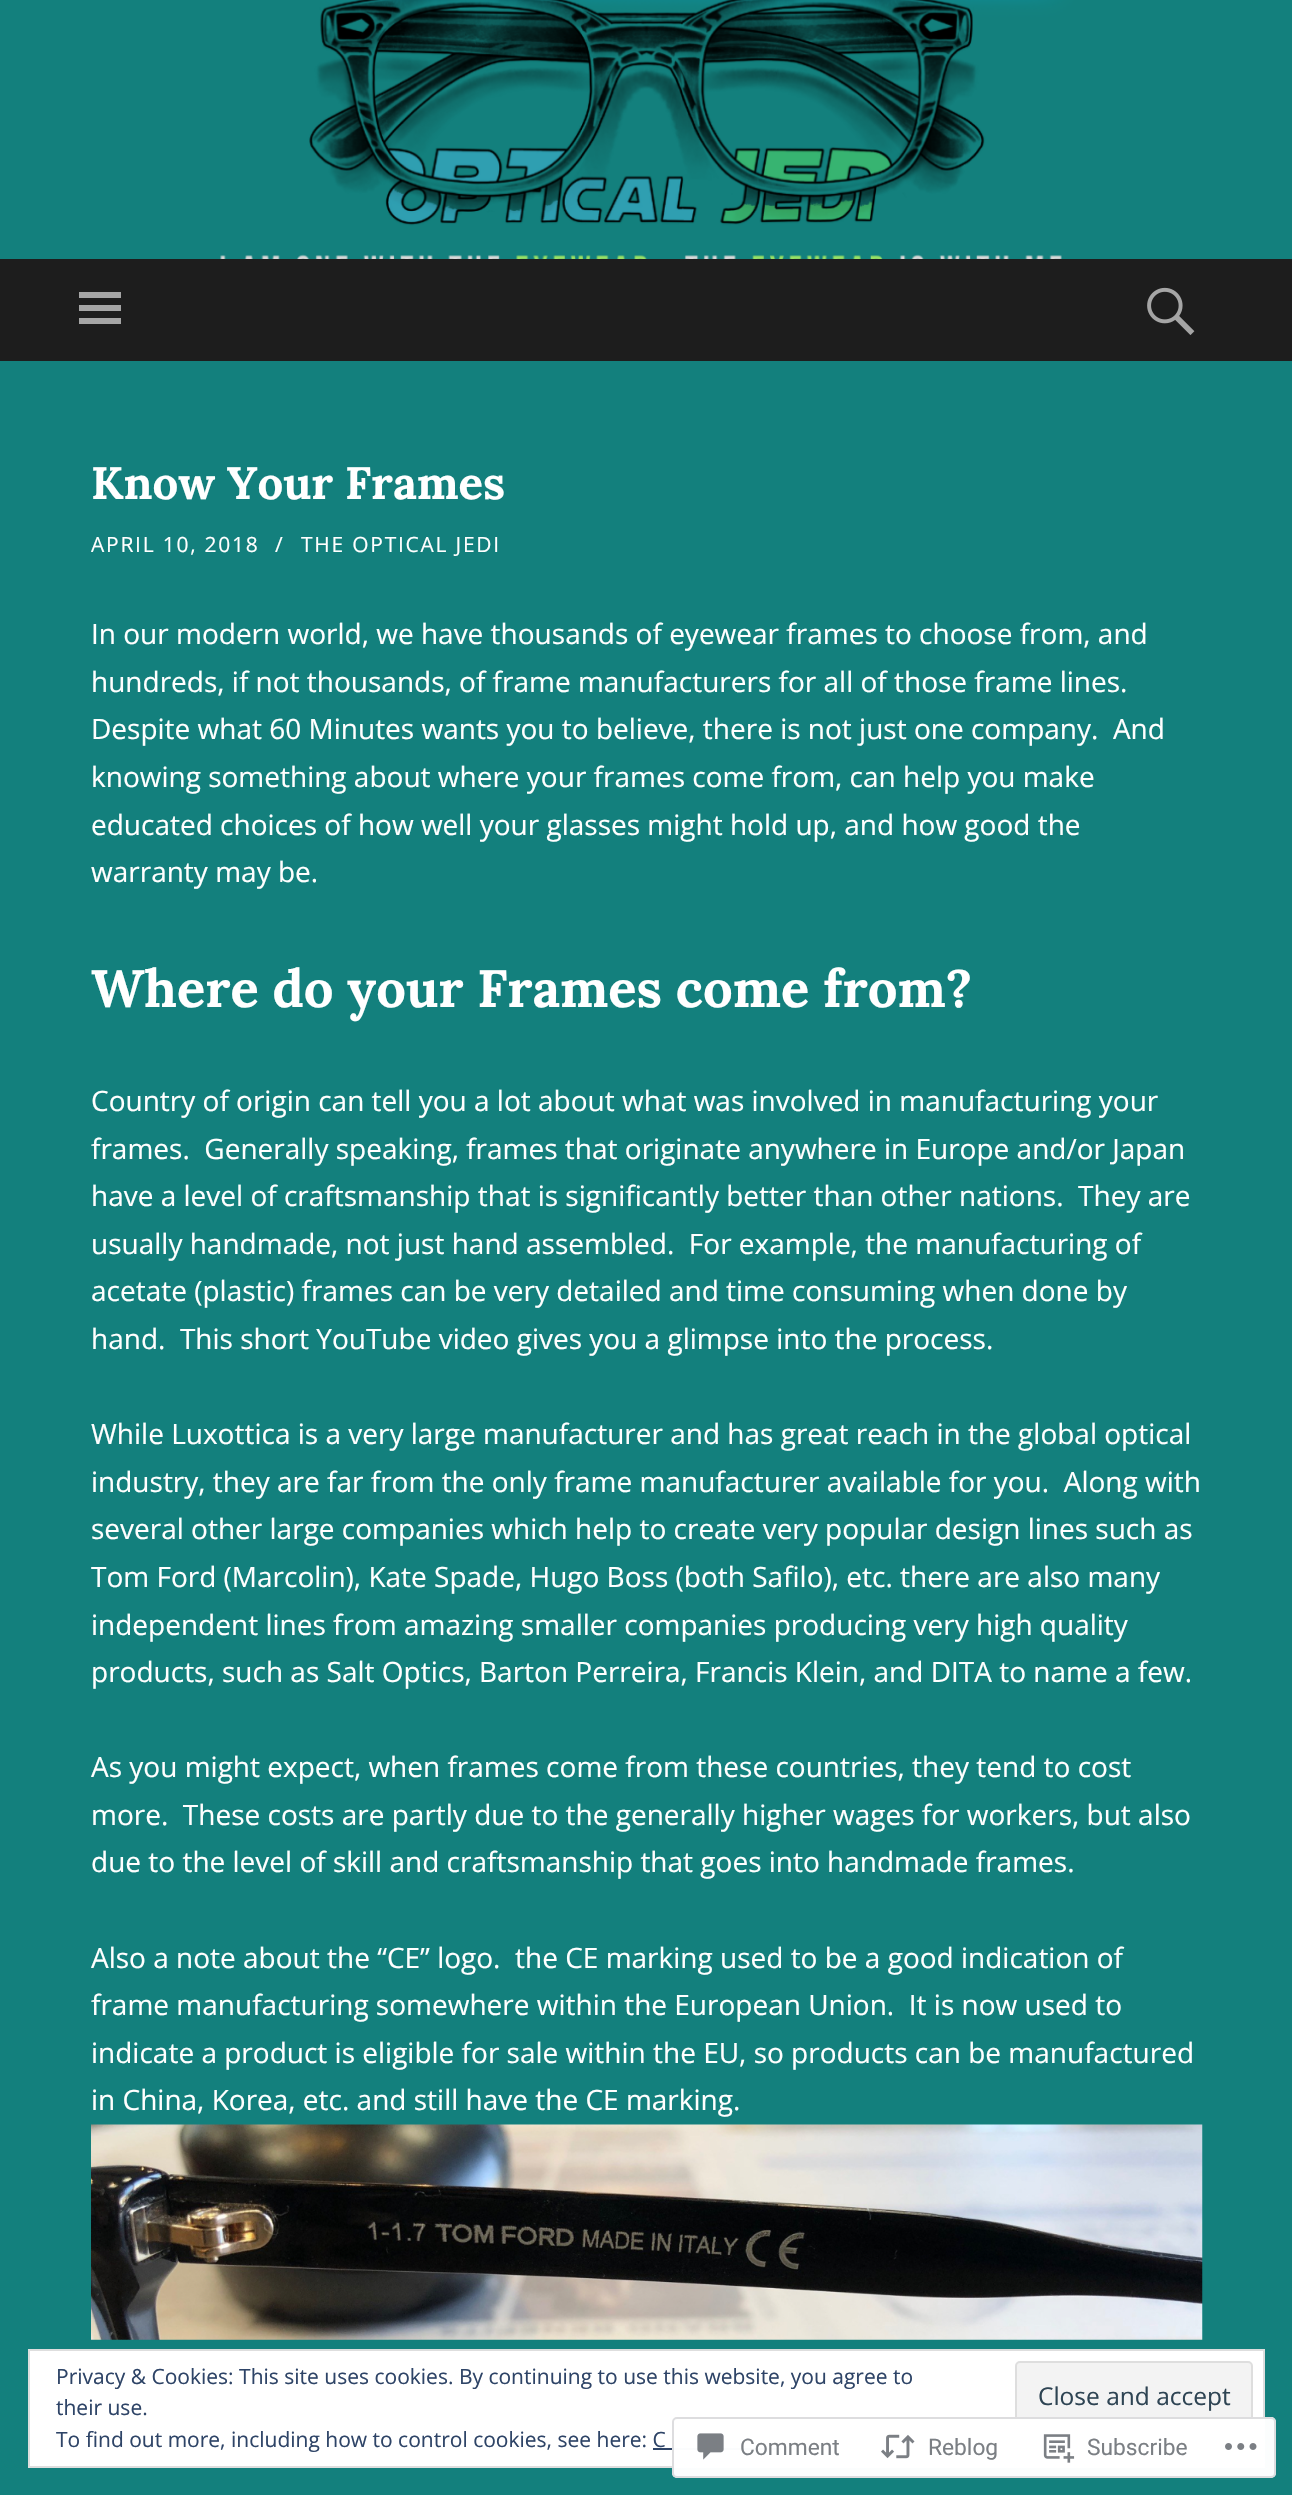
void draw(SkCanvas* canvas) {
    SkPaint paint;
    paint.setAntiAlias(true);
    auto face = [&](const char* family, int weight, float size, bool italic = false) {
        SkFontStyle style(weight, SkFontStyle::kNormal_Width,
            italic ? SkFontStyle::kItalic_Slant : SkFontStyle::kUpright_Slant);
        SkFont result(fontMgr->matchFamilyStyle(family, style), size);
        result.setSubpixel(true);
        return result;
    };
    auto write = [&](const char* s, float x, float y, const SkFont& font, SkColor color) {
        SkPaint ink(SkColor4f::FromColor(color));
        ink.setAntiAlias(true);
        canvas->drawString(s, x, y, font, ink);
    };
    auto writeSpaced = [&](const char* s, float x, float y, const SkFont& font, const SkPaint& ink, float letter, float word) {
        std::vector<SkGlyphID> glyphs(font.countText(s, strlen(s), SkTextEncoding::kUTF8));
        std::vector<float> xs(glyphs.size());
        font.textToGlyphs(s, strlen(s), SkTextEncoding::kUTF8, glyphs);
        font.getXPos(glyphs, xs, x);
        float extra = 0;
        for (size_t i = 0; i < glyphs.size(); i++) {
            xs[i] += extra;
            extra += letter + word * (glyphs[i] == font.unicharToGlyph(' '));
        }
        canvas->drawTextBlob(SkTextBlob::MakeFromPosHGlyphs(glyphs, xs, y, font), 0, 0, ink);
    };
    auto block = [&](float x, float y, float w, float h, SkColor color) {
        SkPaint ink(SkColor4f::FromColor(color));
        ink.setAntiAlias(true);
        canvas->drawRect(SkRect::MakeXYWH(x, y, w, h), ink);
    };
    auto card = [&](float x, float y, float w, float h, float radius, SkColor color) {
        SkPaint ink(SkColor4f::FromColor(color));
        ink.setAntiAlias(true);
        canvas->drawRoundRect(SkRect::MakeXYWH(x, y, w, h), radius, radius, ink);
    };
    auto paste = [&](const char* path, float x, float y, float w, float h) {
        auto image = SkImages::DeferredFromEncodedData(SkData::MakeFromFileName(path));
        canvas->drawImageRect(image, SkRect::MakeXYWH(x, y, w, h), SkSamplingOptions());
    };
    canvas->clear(SkColorSetRGB(19, 128, 125));
    paste("pic1.png", 0, 0, 1292, 259);
    block(0, 259, 1292, 102, SkColorSetRGB(29, 29, 29));
    paint.setColor(SkColorSetRGB(165, 165, 165));
    canvas->drawPath(SkPathBuilder().moveTo(79, 324).lineTo(79, 318).lineTo(121, 318).lineTo(121, 324).close().moveTo(79, 292).lineTo(121, 292).lineTo(121, 298).lineTo(79, 298).close().moveTo(79, 311).lineTo(79, 305).lineTo(121, 305).lineTo(121, 311).close().detach(), paint);
    paste("pic2.png", 1147, 287, 48, 48);
    auto kFont1 = face("Lora", 700, 45.5f);
    write("Know Your Frames", 91, 499, kFont1, SK_ColorWHITE);
    auto kFont2 = face("Open Sans", 400, 21);
    paint.setColor(SK_ColorWHITE);
    writeSpaced("APRIL 10, 2018", 91, 552, kFont2, paint, 1.75f, 0);
    writeSpaced("/", 275, 552, kFont2, paint, 1.75f, 0);
    writeSpaced("THE OPTICAL JEDI", 301, 552, kFont2, paint, 1.75f, 0);
    auto kFont3 = face("Open Sans", 400, 28);
    write("In our modern world, we have thousands of eyewear frames to choose from, and", 91, 644, kFont3, SK_ColorWHITE);
    write("hundreds, if not thousands, of frame manufacturers for all of those frame lines.", 91, 692, kFont3, SK_ColorWHITE);
    write("Despite what 60 Minutes wants you to believe, there is not just one company.  And", 91, 739, kFont3, SK_ColorWHITE);
    write("knowing something about where your frames come from, can help you make", 91, 787, kFont3, SK_ColorWHITE);
    write("educated choices of how well your glasses might hold up, and how good the", 91, 835, kFont3, SK_ColorWHITE);
    write("warranty may be.", 91, 882, kFont3, SK_ColorWHITE);
    auto kFont4 = face("Lora", 700, 52.5f);
    write("Where do your Frames come from?", 91, 1007, kFont4, SK_ColorWHITE);
    write("Country of origin can tell you a lot about what was involved in manufacturing your", 91, 1111, kFont3, SK_ColorWHITE);
    write("frames.  Generally speaking, frames that originate anywhere in Europe and/or Japan", 91, 1159, kFont3, SK_ColorWHITE);
    write("have a level of craftsmanship that is significantly better than other nations.  They are", 91, 1206, kFont3, SK_ColorWHITE);
    write("usually handmade, not just hand assembled.  For example, the manufacturing of", 91, 1254, kFont3, SK_ColorWHITE);
    write("acetate (plastic) frames can be very detailed and time consuming when done by", 91, 1301, kFont3, SK_ColorWHITE);
    write("hand.  This short YouTube video gives you a glimpse into the process.", 91, 1349, kFont3, SK_ColorWHITE);
    write("While Luxottica is a very large manufacturer and has great reach in the global optical", 91, 1444, kFont3, SK_ColorWHITE);
    write("industry, they are far from the only frame manufacturer available for you.  Along with", 91, 1492, kFont3, SK_ColorWHITE);
    write("several other large companies which help to create very popular design lines such as", 91, 1539, kFont3, SK_ColorWHITE);
    write("Tom Ford (Marcolin), Kate Spade, Hugo Boss (both Safilo), etc. there are also many", 91, 1587, kFont3, SK_ColorWHITE);
    write("independent lines from amazing smaller companies producing very high quality", 91, 1635, kFont3, SK_ColorWHITE);
    write("products, such as Salt Optics, Barton Perreira, Francis Klein, and DITA to name a few.", 91, 1682, kFont3, SK_ColorWHITE);
    write("As you might expect, when frames come from these countries, they tend to cost", 91, 1777, kFont3, SK_ColorWHITE);
    write("more.  These costs are partly due to the generally higher wages for workers, but also", 91, 1825, kFont3, SK_ColorWHITE);
    write("due to the level of skill and craftsmanship that goes into handmade frames.", 91, 1872, kFont3, SK_ColorWHITE);
    write("Also a note about the “CE” logo.  the CE marking used to be a good indication of", 91, 1968, kFont3, SK_ColorWHITE);
    write("frame manufacturing somewhere within the European Union.  It is now used to", 91, 2015, kFont3, SK_ColorWHITE);
    write("indicate a product is eligible for sale within the EU, so products can be manufactured", 91, 2063, kFont3, SK_ColorWHITE);
    write("in China, Korea, etc. and still have the CE marking.", 91, 2110, kFont3, SK_ColorWHITE);
    paste("pic3.png", 91, 2124, 1112, 216);
    canvas->drawRect(SkRect::MakeXYWH(29, 2350, 1235, 117), paint);
    paint.setStyle(SkPaint::kStroke_Style);
    paint.setStrokeWidth(2);
    paint.setColor(SkColorSetRGB(222, 222, 222));
    canvas->drawRect(SkRect::MakeXYWH(29, 2350, 1235, 117), paint);
    write("Privacy & Cookies: This site uses cookies. By continuing to use this website, you agree to", 56, 2384, kFont2, SkColorSetRGB(46, 68, 103));
    write("their use.", 56, 2415, kFont2, SkColorSetRGB(46, 68, 103));
    paint.setStyle(SkPaint::kFill_Style);
    paint.setColor(SkColorSetRGB(243, 243, 243));
    canvas->drawRoundRect(SkRect::MakeXYWH(1016, 2362, 236, 66), 4, 4, paint);
    paint.setStyle(SkPaint::kStroke_Style);
    paint.setColor(SkColorSetRGB(222, 222, 222));
    canvas->drawRoundRect(SkRect::MakeXYWH(1016, 2362, 236, 66), 4, 4, paint);
    auto kFont5 = face("Open Sans", 400, 24.5f);
    write("Close and accept", 1038, 2405, kFont5, SkColorSetRGB(46, 68, 83));
    write("To find out more, including how to control cookies, see here: C", 56, 2447, kFont2, SkColorSetRGB(46, 68, 103));
    block(653, 2448, 128, 2, SkColorSetRGB(46, 68, 103));
    card(672, 2417, 604, 61, 5, SkColorSetARGB(250, 255, 255, 255));
    paint.setColor(SkColorSetARGB(250, 220, 220, 222));
    canvas->drawRoundRect(SkRect::MakeXYWH(673, 2418, 602, 59), 4, 4, paint);
    paste("pic4.png", 697, 2433, 27, 27);
    auto kFont6 = face("Roboto", 400, 22.75f);
    write("Comment", 740, 2455, kFont6, SkColorSetRGB(123, 127, 132));
    paste("pic5.png", 881, 2434, 34, 25);
    write("Reblog", 928, 2455, kFont6, SkColorSetRGB(123, 127, 132));
    paste("pic6.png", 1043, 2434, 32, 29);
    write("Subscribe", 1087, 2455, kFont6, SkColorSetRGB(123, 127, 132));
    paste("pic7.png", 1225, 2443, 32, 7);
}
